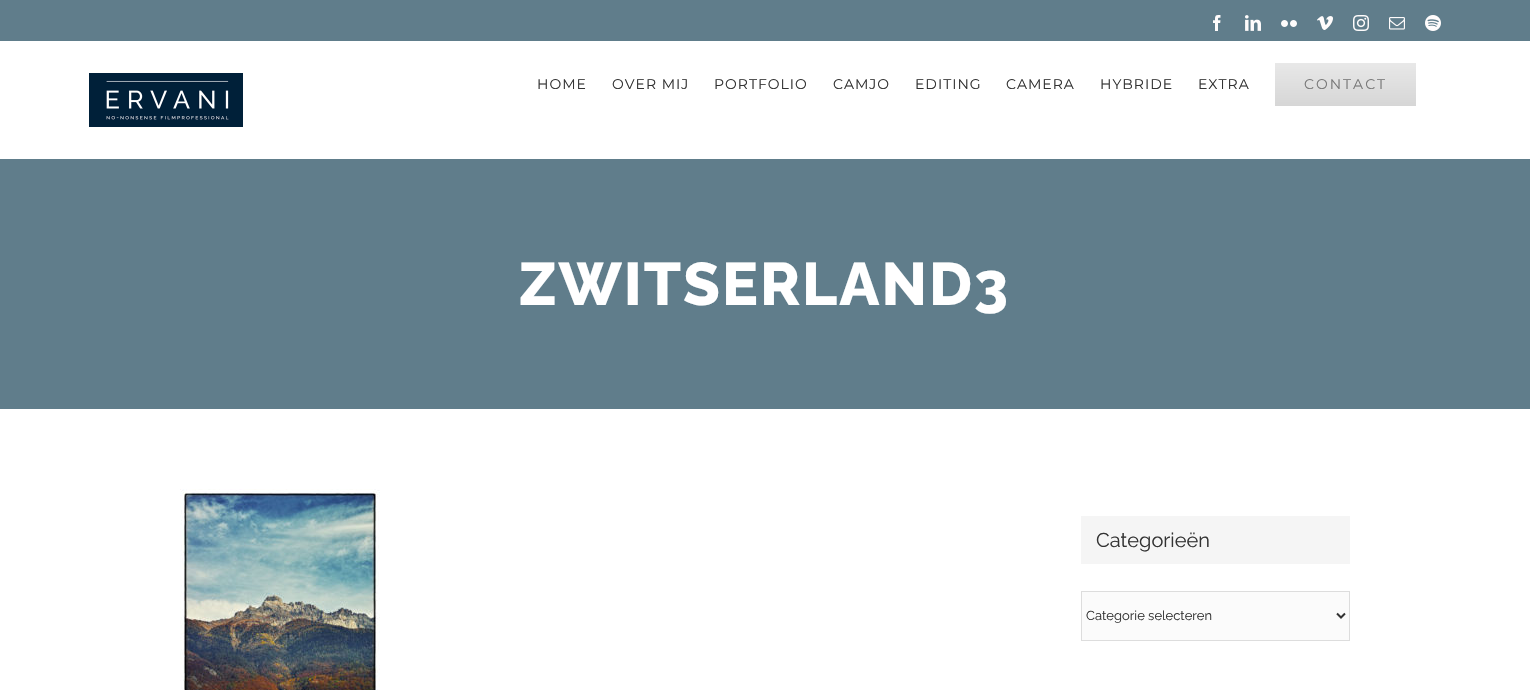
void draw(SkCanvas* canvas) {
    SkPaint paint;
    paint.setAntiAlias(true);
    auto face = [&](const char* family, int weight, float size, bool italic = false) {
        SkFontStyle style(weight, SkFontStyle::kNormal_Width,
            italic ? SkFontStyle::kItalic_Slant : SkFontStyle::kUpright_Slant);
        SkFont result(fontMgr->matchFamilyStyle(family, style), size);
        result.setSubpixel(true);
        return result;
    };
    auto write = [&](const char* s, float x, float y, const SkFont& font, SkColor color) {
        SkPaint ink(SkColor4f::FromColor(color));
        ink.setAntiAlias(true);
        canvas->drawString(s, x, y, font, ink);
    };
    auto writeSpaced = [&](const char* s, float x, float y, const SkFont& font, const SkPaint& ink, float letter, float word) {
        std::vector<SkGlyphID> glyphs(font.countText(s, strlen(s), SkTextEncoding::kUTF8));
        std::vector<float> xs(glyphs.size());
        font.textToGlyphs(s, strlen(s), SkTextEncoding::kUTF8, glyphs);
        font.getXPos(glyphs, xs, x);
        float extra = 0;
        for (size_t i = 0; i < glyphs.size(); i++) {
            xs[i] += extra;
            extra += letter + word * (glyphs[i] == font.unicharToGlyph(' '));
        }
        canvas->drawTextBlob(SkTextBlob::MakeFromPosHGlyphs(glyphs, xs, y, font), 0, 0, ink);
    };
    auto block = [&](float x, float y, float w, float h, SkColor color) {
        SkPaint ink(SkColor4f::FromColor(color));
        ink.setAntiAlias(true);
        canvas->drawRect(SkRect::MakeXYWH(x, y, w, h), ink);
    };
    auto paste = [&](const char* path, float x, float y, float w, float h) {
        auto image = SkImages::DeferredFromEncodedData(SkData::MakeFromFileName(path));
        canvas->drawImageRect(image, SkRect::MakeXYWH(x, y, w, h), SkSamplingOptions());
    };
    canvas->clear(SK_ColorWHITE);
    block(0, 0, 1530, 41, SkColorSetRGB(96, 125, 139));
    paste("pic1.png", 1213, 15, 8, 16);
    paste("pic2.png", 1245, 15, 16, 16);
    paste("pic3.png", 1281, 20, 16, 7);
    paste("pic4.png", 1317, 16, 16, 14);
    paste("pic5.png", 1353, 15, 16, 16);
    paste("pic6.png", 1389, 17, 16, 13);
    paste("pic7.png", 1425, 15, 16, 16);
    paste("pic8.png", 89, 73, 154, 54);
    auto kFont1 = face("Montserrat", 400, 14);
    paint.setColor(SkColorSetRGB(51, 51, 51));
    writeSpaced("HOME", 537, 89, kFont1, paint, 1, 0);
    writeSpaced("OVER MIJ", 612, 89, kFont1, paint, 1, 0);
    writeSpaced("PORTFOLIO", 714, 89, kFont1, paint, 1, 0);
    writeSpaced("CAMJO", 833, 89, kFont1, paint, 1, 0);
    writeSpaced("EDITING", 915, 89, kFont1, paint, 1, 0);
    writeSpaced("CAMERA", 1006, 89, kFont1, paint, 1, 0);
    writeSpaced("HYBRIDE", 1100, 89, kFont1, paint, 1, 0);
    writeSpaced("EXTRA", 1198, 89, kFont1, paint, 1, 0);
    {
        const SkColor colors[] = {SkColorSetRGB(232, 232, 232), SkColorSetRGB(214, 214, 214)};
        const float stops[] = {0, 1};
        const SkPoint ends[] = {{1346, 63}, {1346, 106}};
        paint.setShader(SkGradientShader::MakeLinear(ends, colors, stops, 2, SkTileMode::kClamp));
        paint.setAlpha(255);
    }
    canvas->drawRect(SkRect::MakeXYWH(1275, 63, 141, 43), paint);
    paint.setShader(nullptr);
    paint.setColor(SkColorSetRGB(120, 120, 120));
    writeSpaced("CONTACT", 1304, 89, kFont1, paint, 2, 0);
    block(0, 159, 1530, 250, SkColorSetRGB(96, 125, 139));
    auto kFont2 = face("Raleway", 800, 60);
    paint.setColor(SK_ColorWHITE);
    writeSpaced("ZWITSERLAND3", 519, 305, kFont2, paint, 2, 0);
    paste("pic9.png", 180, 489, 200, 201);
    block(1081, 516, 269, 48, SkColorSetRGB(245, 245, 245));
    auto kFont3 = face("Raleway", 400, 20);
    write("Categorieën", 1096, 547, kFont3, SkColorSetRGB(51, 51, 51));
    paint.setColor(SkColorSetRGB(251, 251, 251));
    canvas->drawRect(SkRect::MakeXYWH(1081.5f, 591.5f, 268, 49), paint);
    paint.setStyle(SkPaint::kStroke_Style);
    paint.setStrokeWidth(1);
    paint.setColor(SkColorSetRGB(221, 221, 221));
    canvas->drawRect(SkRect::MakeXYWH(1081.5f, 591.5f, 268, 49), paint);
    paint.setStrokeWidth(2);
    paint.setColor(SkColorSetRGB(51, 51, 51));
    canvas->drawPath(SkPathBuilder().moveTo(1337, 613.5f).lineTo(1341, 617.5f).lineTo(1345, 613.5f).detach(), paint);
    auto kFont4 = face("Raleway", 400, 13);
    write("Categorie selecteren", 1086, 620, kFont4, SkColorSetRGB(51, 51, 51));
}
